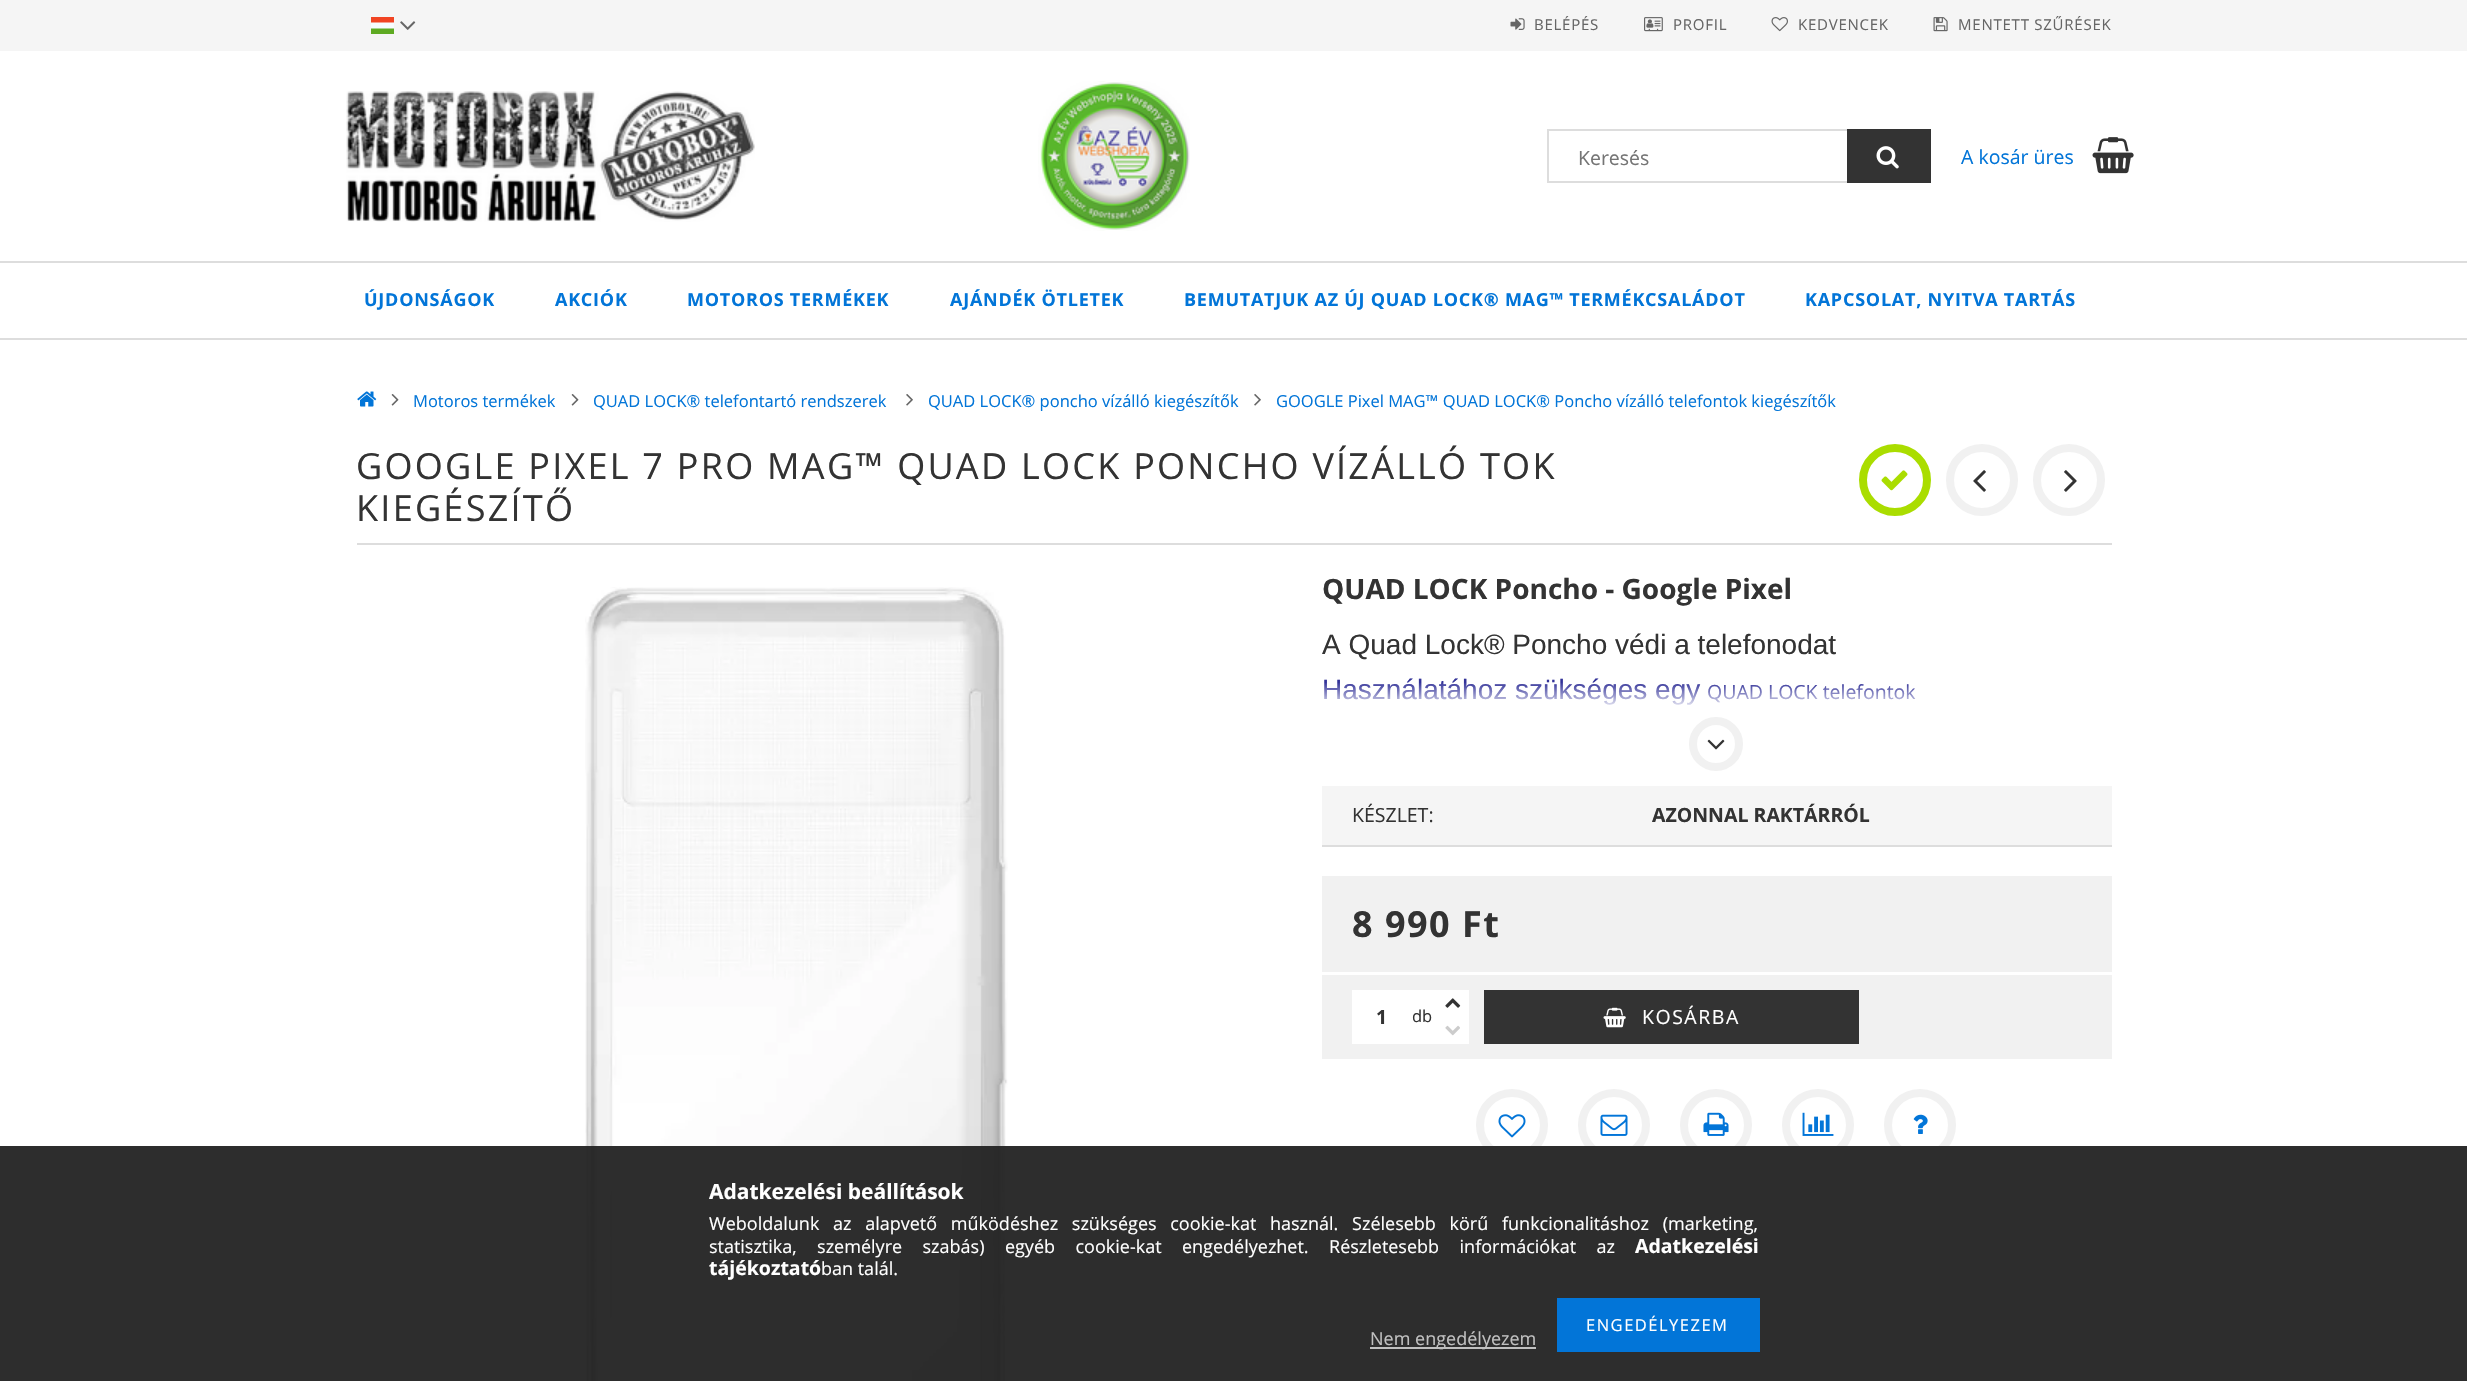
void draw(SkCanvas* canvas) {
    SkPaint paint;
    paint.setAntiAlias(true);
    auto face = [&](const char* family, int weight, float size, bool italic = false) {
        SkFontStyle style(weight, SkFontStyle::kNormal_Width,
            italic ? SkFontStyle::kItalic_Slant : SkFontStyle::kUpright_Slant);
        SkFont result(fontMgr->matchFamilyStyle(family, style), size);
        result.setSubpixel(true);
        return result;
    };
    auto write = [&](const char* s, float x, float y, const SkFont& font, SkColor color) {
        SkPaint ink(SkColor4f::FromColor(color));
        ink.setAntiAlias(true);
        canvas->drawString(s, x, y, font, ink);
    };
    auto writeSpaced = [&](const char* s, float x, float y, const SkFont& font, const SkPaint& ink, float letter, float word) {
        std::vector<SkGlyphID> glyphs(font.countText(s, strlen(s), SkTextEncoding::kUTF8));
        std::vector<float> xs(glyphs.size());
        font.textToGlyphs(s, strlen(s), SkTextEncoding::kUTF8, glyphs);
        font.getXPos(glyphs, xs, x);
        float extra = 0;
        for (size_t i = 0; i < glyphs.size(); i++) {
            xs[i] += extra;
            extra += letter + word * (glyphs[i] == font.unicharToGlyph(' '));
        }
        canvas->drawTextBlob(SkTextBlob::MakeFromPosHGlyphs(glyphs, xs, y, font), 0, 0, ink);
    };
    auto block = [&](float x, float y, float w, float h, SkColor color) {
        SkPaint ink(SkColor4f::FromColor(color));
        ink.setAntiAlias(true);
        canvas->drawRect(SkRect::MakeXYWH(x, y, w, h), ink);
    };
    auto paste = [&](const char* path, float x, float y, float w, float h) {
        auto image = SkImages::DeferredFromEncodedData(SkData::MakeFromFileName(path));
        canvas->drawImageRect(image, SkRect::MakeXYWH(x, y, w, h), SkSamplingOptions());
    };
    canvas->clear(SK_ColorWHITE);
    block(0, 0, 2467, 51, SkColorSetRGB(245, 245, 245));
    paste("pic1.png", 371, 17, 23, 17);
    paste("pic2.png", 400, 21, 16, 9);
    paste("pic3.png", 1510, 18, 15, 12);
    auto kFont1 = face("Open Sans", 400, 15);
    paint.setColor(SkColorSetRGB(102, 102, 102));
    writeSpaced("BELÉPÉS", 1534, 30, kFont1, paint, 0.75f, 0);
    paste("pic4.png", 1644, 17, 19, 15);
    writeSpaced("PROFIL", 1673, 30, kFont1, paint, 0.75f, 0);
    paste("pic5.png", 1771, 17, 17, 15);
    writeSpaced("KEDVENCEK", 1798, 30, kFont1, paint, 0.75f, 0);
    paste("pic6.png", 1933, 17, 15, 15);
    writeSpaced("MENTETT SZŰRÉSEK", 1958, 30, kFont1, paint, 0.75f, 0);
    paste("pic7.png", 346, 91, 409, 131);
    paste("pic8.png", 1038, 81, 152, 150);
    paint.setStyle(SkPaint::kStroke_Style);
    paint.setStrokeWidth(2);
    paint.setColor(SkColorSetRGB(221, 221, 221));
    canvas->drawRect(SkRect::MakeXYWH(1548, 130, 382, 52), paint);
    auto kFont2 = face("Open Sans", 400, 19.5f);
    write("Keresés", 1578, 165, kFont2, SkColorSetRGB(117, 117, 117));
    block(1847, 129, 84, 54, SkColorSetRGB(51, 51, 51));
    paste("pic9.png", 1876, 146, 23, 23);
    write("A kosár üres", 1961, 164, kFont2, SkColorSetRGB(2, 117, 216));
    paste("pic10.png", 2092, 137, 42, 37);
    block(0, 261, 2467, 2, SkColorSetRGB(221, 221, 221));
    block(0, 338, 2467, 2, SkColorSetRGB(221, 221, 221));
    auto kFont3 = face("Open Sans", 700, 18);
    paint.setStyle(SkPaint::kFill_Style);
    paint.setColor(SkColorSetRGB(2, 117, 216));
    writeSpaced("ÚJDONSÁGOK", 364, 306, kFont3, paint, 0.75f, 0);
    writeSpaced("AKCIÓK", 555, 306, kFont3, paint, 0.75f, 0);
    writeSpaced("MOTOROS TERMÉKEK", 687, 306, kFont3, paint, 0.75f, 0);
    writeSpaced("AJÁNDÉK ÖTLETEK", 950, 306, kFont3, paint, 0.75f, 0);
    writeSpaced("BEMUTATJUK AZ ÚJ QUAD LOCK® MAG™ TERMÉKCSALÁDOT", 1184, 306, kFont3, paint, 0.75f, 0);
    writeSpaced("KAPCSOLAT, NYITVA TARTÁS", 1805, 306, kFont3, paint, 0.75f, 0);
    paste("pic11.png", 357, 391, 20, 16);
    paste("pic12.png", 391, 394, 8, 12);
    auto kFont4 = face("Open Sans", 400, 16.5f);
    write("Motoros termékek", 413, 407, kFont4, SkColorSetRGB(2, 117, 216));
    paste("pic12.png", 571, 394, 8, 12);
    write("QUAD LOCK® telefontartó rendszerek", 593, 407, kFont4, SkColorSetRGB(2, 117, 216));
    paste("pic13.png", 906, 394, 7, 12);
    write("QUAD LOCK® poncho vízálló kiegészítők", 928, 407, kFont4, SkColorSetRGB(2, 117, 216));
    paste("pic13.png", 1254, 394, 7, 12);
    write("GOOGLE Pixel MAG™ QUAD LOCK® Poncho vízálló telefontok kiegészítők", 1276, 407, kFont4, SkColorSetRGB(2, 117, 216));
    block(357, 543, 1755, 2, SkColorSetRGB(221, 221, 221));
    auto kFont5 = face("Open Sans", 400, 36);
    paint.setColor(SkColorSetRGB(51, 51, 51));
    writeSpaced("GOOGLE PIXEL 7 PRO MAG™ QUAD LOCK PONCHO VÍZÁLLÓ TOK", 356, 479, kFont5, paint, 2.25f, 0);
    writeSpaced("KIEGÉSZÍTŐ", 356, 521, kFont5, paint, 2.25f, 0);
    paint.setStyle(SkPaint::kStroke_Style);
    paint.setStrokeWidth(8);
    paint.setColor(SkColorSetRGB(170, 221, 0));
    canvas->drawCircle(1895, 480, 32, paint);
    paste("pic14.png", 1881, 470, 27, 21);
    paint.setColor(SkColorSetRGB(241, 241, 241));
    canvas->drawCircle(1982, 480, 32, paint);
    paste("pic15.png", 1973, 470, 13, 22);
    canvas->drawCircle(2069, 480, 32, paint);
    paste("pic16.png", 2064, 470, 13, 22);
    paste("pic17.png", 585, 587, 423, 794);
    auto kFont6 = face("Open Sans", 700, 28);
    write("QUAD LOCK Poncho - Google Pixel", 1322, 599, kFont6, SkColorSetRGB(51, 51, 51));
    auto kFont7 = face("Liberation Sans", 400, 28);
    write("A Quad Lock® Poncho védi a telefonodat", 1322, 654, kFont7, SkColorSetRGB(51, 51, 51));
    write("Használatához szükséges egy", 1322, 699, kFont7, SkColorSetRGB(51, 51, 153));
    write("QUAD LOCK telefontok", 1707, 699, kFont2, SkColorSetRGB(51, 51, 153));
    paint.setStyle(SkPaint::kFill_Style);
    {
        const SkColor colors[] = {SkColorSetARGB(0, 255, 255, 255), SK_ColorWHITE};
        const float stops[] = {0, 1};
        const SkPoint ends[] = {{1717, 682}, {1717, 710}};
        paint.setShader(SkGradientShader::MakeLinear(ends, colors, stops, 2, SkTileMode::kClamp));
        paint.setAlpha(255);
    }
    canvas->drawRect(SkRect::MakeXYWH(1323, 683, 593, 22), paint);
    paint.setStyle(SkPaint::kStroke_Style);
    paint.setShader(nullptr);
    paint.setColor(SkColorSetRGB(241, 241, 241));
    canvas->drawCircle(1716, 744, 23, paint);
    paste("pic18.png", 1707, 739, 18, 11);
    block(1322, 845, 790, 2, SkColorSetRGB(221, 221, 221));
    block(1322, 786, 790, 59, SkColorSetRGB(245, 245, 245));
    write("KÉSZLET:", 1352, 822, kFont2, SkColorSetRGB(51, 51, 51));
    auto kFont8 = face("Open Sans", 700, 19.5f);
    write("AZONNAL RAKTÁRRÓL", 1652, 822, kFont8, SkColorSetRGB(51, 51, 51));
    block(1322, 876, 790, 96, SkColorSetRGB(241, 241, 241));
    auto kFont9 = face("Open Sans", 700, 36);
    paint.setStyle(SkPaint::kFill_Style);
    paint.setColor(SkColorSetRGB(51, 51, 51));
    writeSpaced("8 990 Ft", 1352, 937, kFont9, paint, 1.5f, 0);
    block(1322, 975, 790, 84, SkColorSetRGB(241, 241, 241));
    block(1352, 990, 87, 54, SK_ColorWHITE);
    write("1", 1376, 1024, kFont8, SkColorSetRGB(51, 51, 51));
    write("db", 1412, 1022, kFont4, SkColorSetRGB(51, 51, 51));
    block(1439, 990, 30, 54, SK_ColorWHITE);
    paste("pic19.png", 1445, 998, 16, 10);
    paste("pic20.png", 1445, 1025, 15, 11);
    block(1484, 990, 375, 54, SkColorSetRGB(51, 51, 51));
    paste("pic21.png", 1603, 1007, 23, 21);
    paint.setColor(SK_ColorWHITE);
    writeSpaced("KOSÁRBA", 1642, 1024, kFont2, paint, 1.5f, 0);
    paint.setStyle(SkPaint::kStroke_Style);
    paint.setColor(SkColorSetRGB(241, 241, 241));
    canvas->drawCircle(1512, 1125, 32, paint);
    paste("pic22.png", 1498, 1114, 28, 24);
    canvas->drawCircle(1614, 1125, 32, paint);
    paste("pic23.png", 1600, 1114, 28, 22);
    canvas->drawCircle(1716, 1125, 32, paint);
    paste("pic24.png", 1703, 1112, 26, 24);
    canvas->drawCircle(1818, 1125, 32, paint);
    paste("pic25.png", 1802, 1112, 32, 24);
    canvas->drawCircle(1920, 1125, 32, paint);
    paste("pic26.png", 1913, 1114, 15, 20);
    block(0, 1146, 2467, 235, SkColorSetARGB(242, 34, 34, 34));
    auto kFont10 = face("Open Sans", 700, 21);
    write("Adatkezelési beállítások", 709, 1199, kFont10, SK_ColorWHITE);
    auto kFont11 = face("Open Sans", 400, 18);
    paint.setStyle(SkPaint::kFill_Style);
    paint.setColor(SK_ColorWHITE);
    writeSpaced("Weboldalunk az alapvető működéshez szükséges cookie-kat használ. Szélesebb körű funkcionalitáshoz (marketing,", 709, 1230, kFont11, paint, 0, 9);
    writeSpaced("statisztika, személyre szabás) egyéb cookie-kat engedélyezhet. Részletesebb információkat az", 709, 1253, kFont11, paint, 0, 15.75f);
    write("Adatkezelési", 1635, 1253, kFont8, SK_ColorWHITE);
    write("tájékoztató", 709, 1275, kFont8, SK_ColorWHITE);
    write("ban talál.", 821, 1275, kFont11, SK_ColorWHITE);
    block(1557, 1298, 203, 54, SkColorSetRGB(2, 117, 216));
    writeSpaced("ENGEDÉLYEZEM", 1586, 1331, kFont4, paint, 1.5f, 0);
    block(1370, 1347, 166, 2, SkColorSetRGB(192, 192, 192));
    write("Nem engedélyezem", 1370, 1345, kFont11, SkColorSetRGB(192, 192, 192));
}
